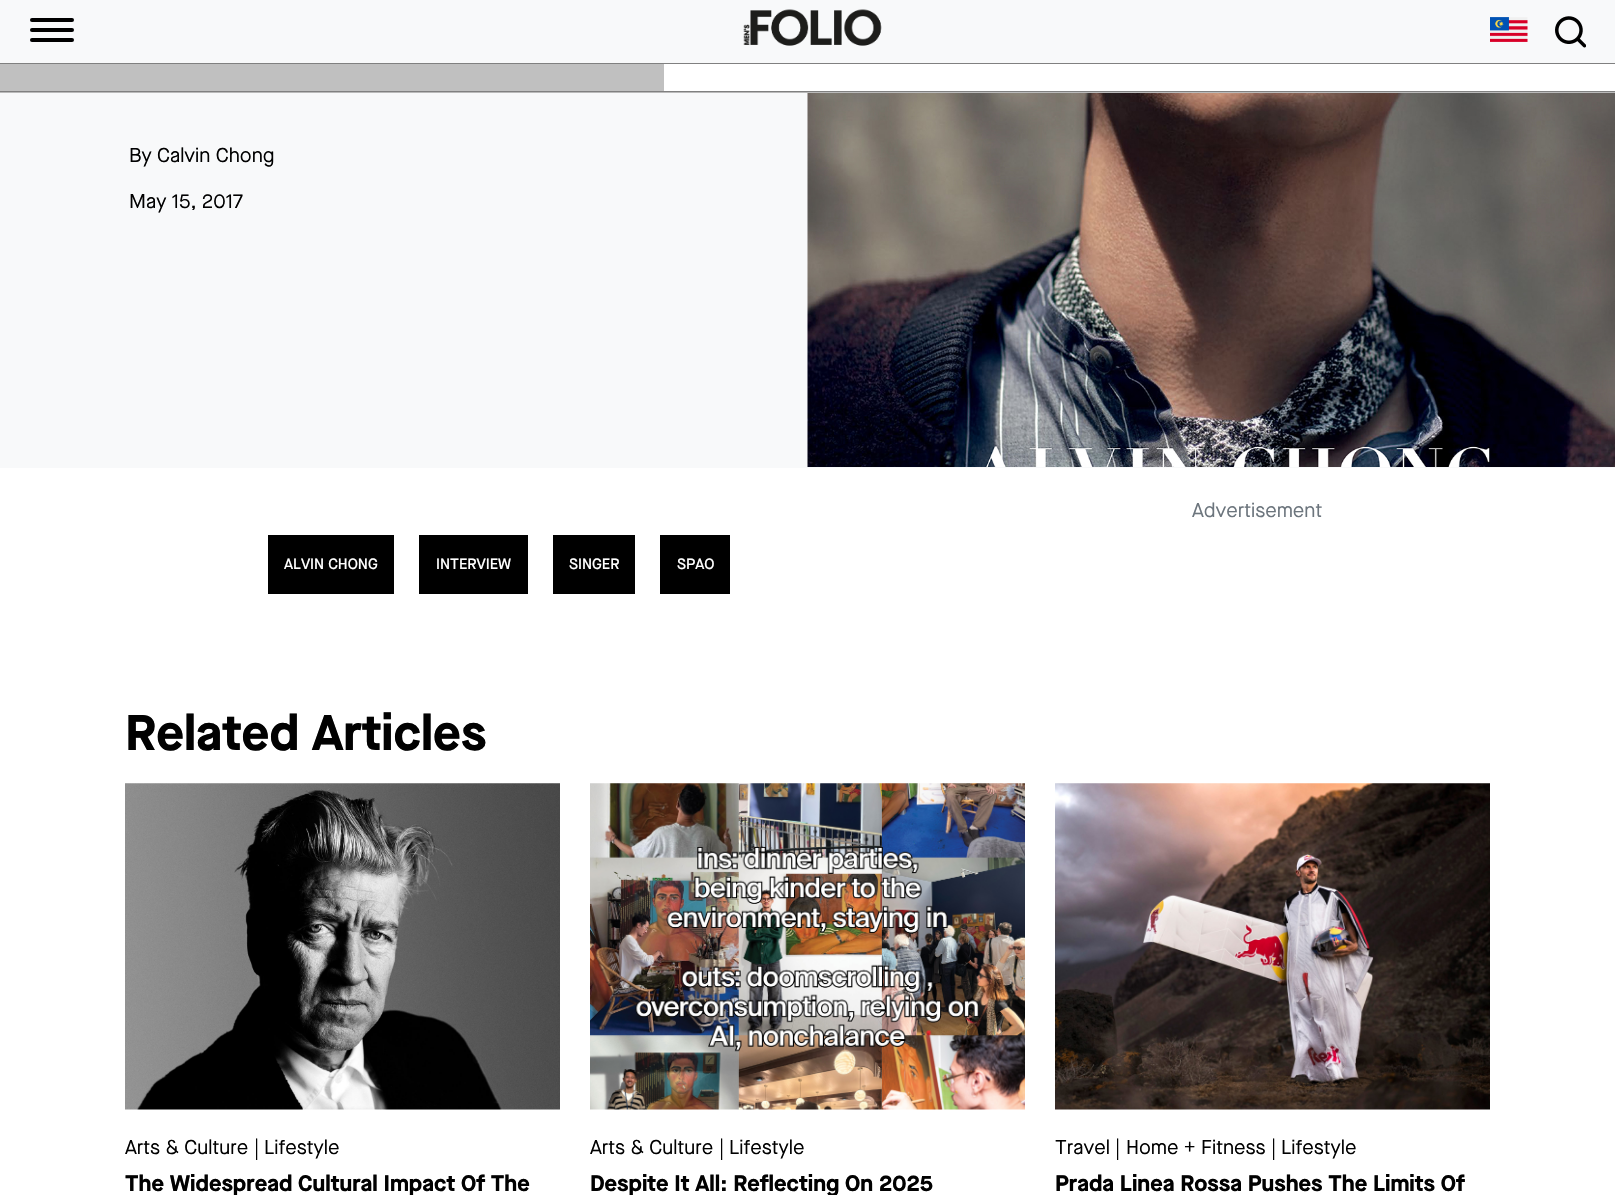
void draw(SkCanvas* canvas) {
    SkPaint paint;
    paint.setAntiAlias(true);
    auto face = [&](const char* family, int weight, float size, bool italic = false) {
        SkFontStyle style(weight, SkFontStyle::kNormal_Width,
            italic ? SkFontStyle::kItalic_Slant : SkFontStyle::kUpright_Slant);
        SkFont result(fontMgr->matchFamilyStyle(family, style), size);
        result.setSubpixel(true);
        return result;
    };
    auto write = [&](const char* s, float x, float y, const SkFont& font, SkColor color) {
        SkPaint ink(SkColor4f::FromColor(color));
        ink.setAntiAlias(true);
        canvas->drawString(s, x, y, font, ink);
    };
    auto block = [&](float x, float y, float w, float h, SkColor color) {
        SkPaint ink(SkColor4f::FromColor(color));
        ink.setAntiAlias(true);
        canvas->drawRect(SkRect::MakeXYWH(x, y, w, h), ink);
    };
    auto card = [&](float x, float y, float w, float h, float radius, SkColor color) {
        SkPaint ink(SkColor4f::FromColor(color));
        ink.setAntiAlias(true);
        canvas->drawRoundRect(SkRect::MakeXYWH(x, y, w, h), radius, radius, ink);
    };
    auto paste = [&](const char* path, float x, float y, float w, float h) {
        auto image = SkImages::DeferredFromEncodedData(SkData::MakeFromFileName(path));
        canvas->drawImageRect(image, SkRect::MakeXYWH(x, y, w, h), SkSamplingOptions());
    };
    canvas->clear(SK_ColorWHITE);
    block(0, 0, 1615, 63, SkColorSetRGB(248, 249, 250));
    card(30, 28, 44, 4, 2, SK_ColorBLACK);
    card(30, 18, 44, 4, 2, SK_ColorBLACK);
    card(30, 38, 44, 4, 2, SK_ColorBLACK);
    paste("pic1.png", 743, 9, 139, 37);
    paste("pic2.png", 1490, 17, 38, 25);
    paste("pic3.png", 1555, 16, 31, 32);
    block(0, 92, 1615, 1, SkColorSetRGB(186, 186, 186));
    block(0, 63, 1615, 1, SkColorSetRGB(128, 128, 128));
    block(0, 91, 1615, 1, SkColorSetRGB(128, 128, 128));
    block(0, 64, 664, 27, SkColorSetRGB(192, 192, 192));
    block(0, 93, 1615, 375, SkColorSetRGB(248, 249, 250));
    auto kFont1 = face("Maison Neue", 400, 20);
    write("By", 129, 162, kFont1, SkColorSetRGB(1, 1, 1));
    write("Calvin Chong", 157, 162, kFont1, SkColorSetRGB(1, 1, 1));
    write("May 15, 2017", 129, 208, kFont1, SkColorSetRGB(1, 1, 1));
    paste("pic4.png", 807, 93, 808, 374);
    write("Advertisement", 1192, 517, kFont1, SkColorSetRGB(108, 117, 125));
    block(268, 535, 126, 59, SK_ColorBLACK);
    auto kFont2 = face("Maison Neue", 500, 15);
    write("ALVIN CHONG", 284, 569, kFont2, SK_ColorWHITE);
    block(419, 535, 109, 59, SK_ColorBLACK);
    write("INTERVIEW", 436, 569, kFont2, SK_ColorWHITE);
    block(553, 535, 82, 59, SK_ColorBLACK);
    write("SINGER", 569, 569, kFont2, SK_ColorWHITE);
    block(660, 535, 70, 59, SK_ColorBLACK);
    write("SPAO", 677, 569, kFont2, SK_ColorWHITE);
    auto kFont3 = face("Maison Neue", 700, 50);
    write("Related Articles", 125, 750, kFont3, SkColorSetRGB(1, 1, 1));
    paste("pic5.png", 125, 783, 435, 327);
    write("Arts & Culture", 125, 1154, kFont1, SkColorSetRGB(1, 1, 1));
    write("|", 254, 1154, kFont1, SkColorSetRGB(1, 1, 1));
    write("Lifestyle", 264, 1154, kFont1, SkColorSetRGB(1, 1, 1));
    auto kFont4 = face("Maison Neue", 700, 22.5f);
    write("The Widespread Cultural Impact Of The", 125, 1191, kFont4, SkColorSetRGB(1, 1, 1));
    paste("pic6.png", 590, 783, 435, 327);
    write("Arts & Culture", 590, 1154, kFont1, SkColorSetRGB(1, 1, 1));
    write("|", 719, 1154, kFont1, SkColorSetRGB(1, 1, 1));
    write("Lifestyle", 729, 1154, kFont1, SkColorSetRGB(1, 1, 1));
    write("Despite It All: Reflecting On 2025", 590, 1191, kFont4, SkColorSetRGB(1, 1, 1));
    paste("pic7.png", 1055, 783, 435, 327);
    write("Travel", 1055, 1154, kFont1, SkColorSetRGB(1, 1, 1));
    write("|", 1115, 1154, kFont1, SkColorSetRGB(1, 1, 1));
    write("Home + Fitness", 1126, 1154, kFont1, SkColorSetRGB(1, 1, 1));
    write("|", 1271, 1154, kFont1, SkColorSetRGB(1, 1, 1));
    write("Lifestyle", 1281, 1154, kFont1, SkColorSetRGB(1, 1, 1));
    write("Prada Linea Rossa Pushes The Limits Of", 1055, 1191, kFont4, SkColorSetRGB(1, 1, 1));
}
